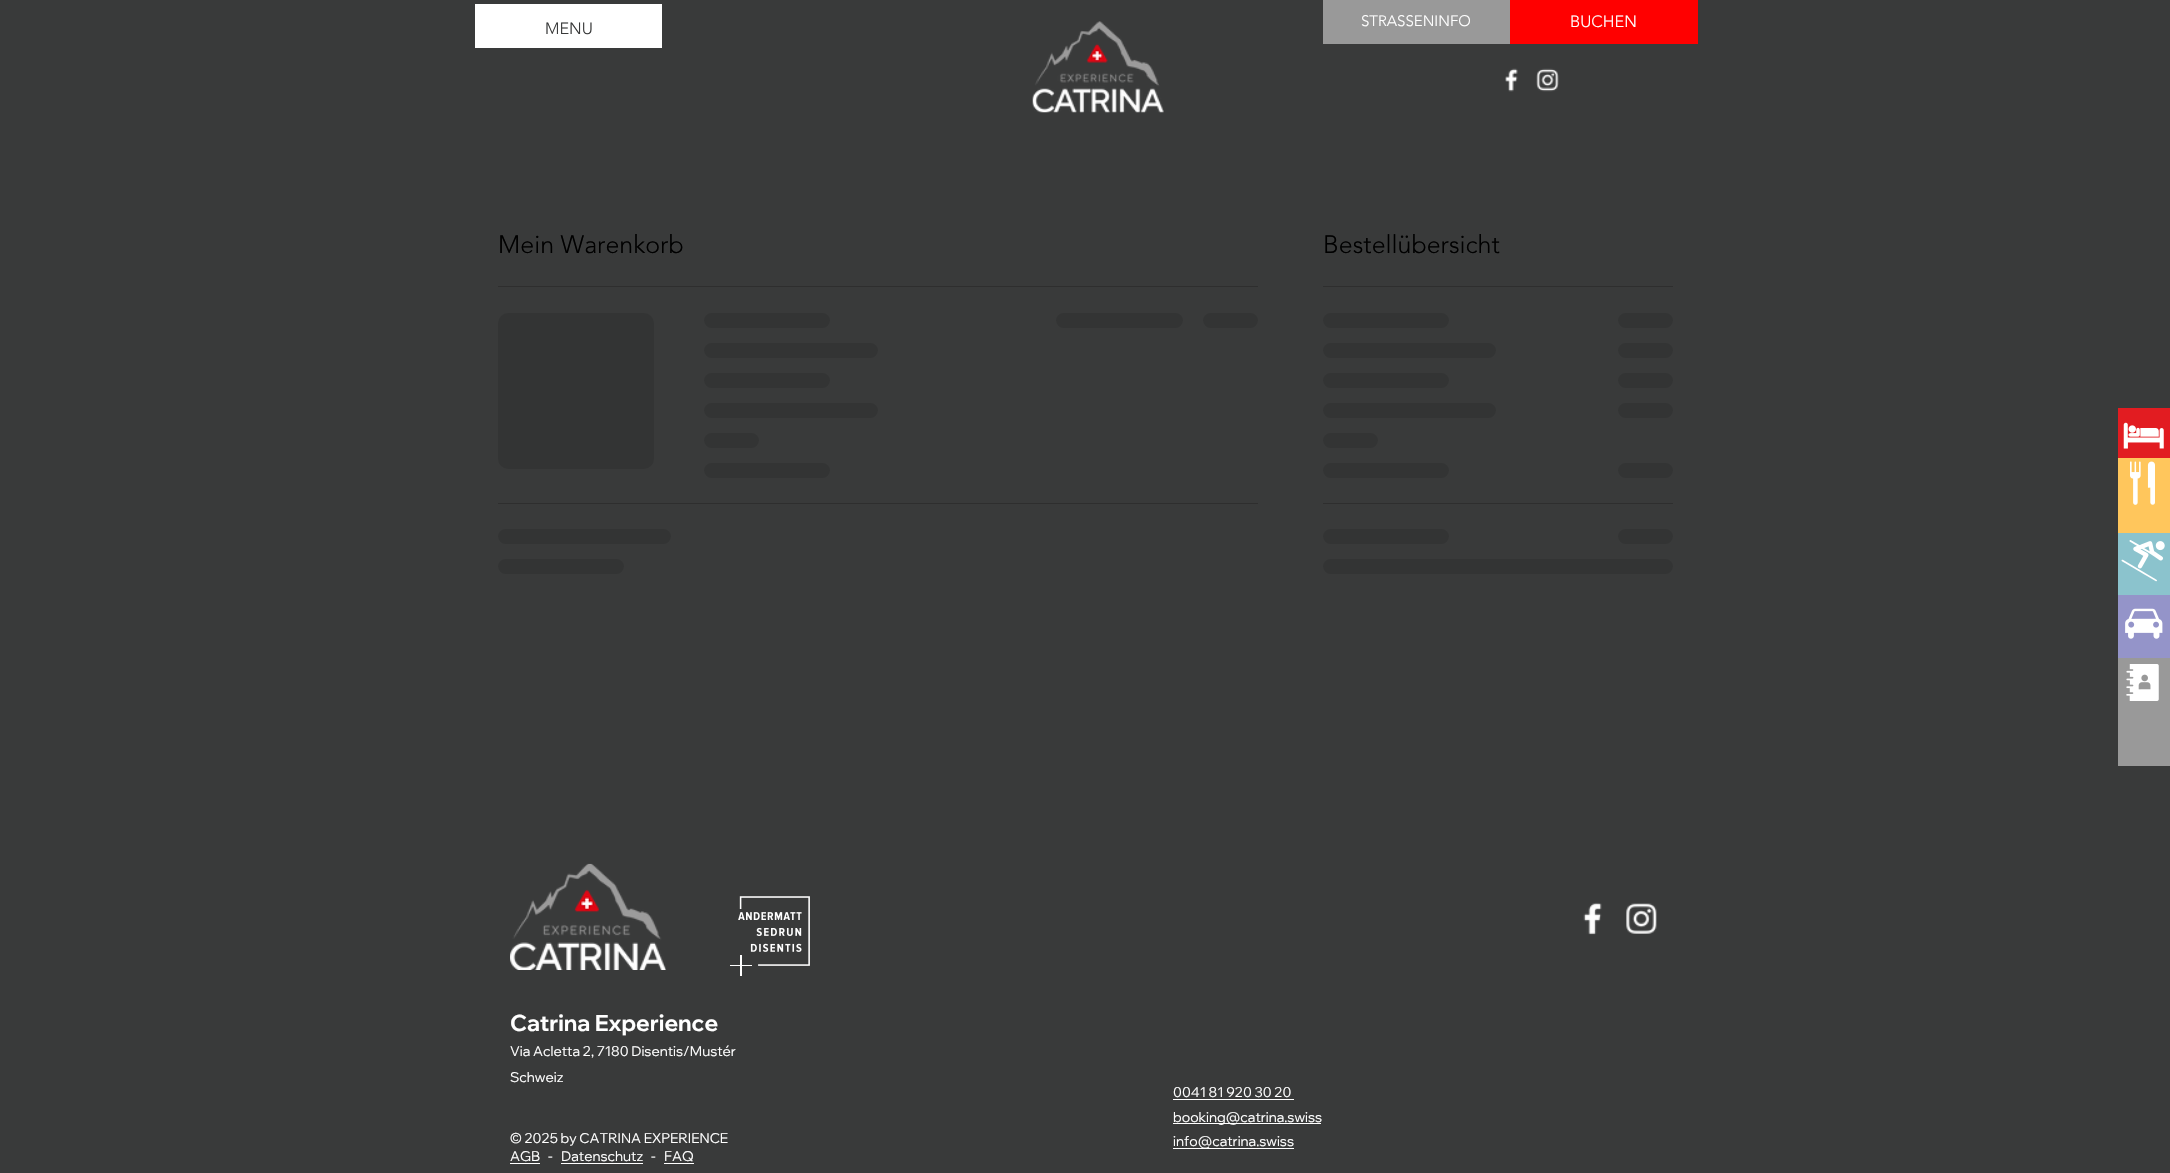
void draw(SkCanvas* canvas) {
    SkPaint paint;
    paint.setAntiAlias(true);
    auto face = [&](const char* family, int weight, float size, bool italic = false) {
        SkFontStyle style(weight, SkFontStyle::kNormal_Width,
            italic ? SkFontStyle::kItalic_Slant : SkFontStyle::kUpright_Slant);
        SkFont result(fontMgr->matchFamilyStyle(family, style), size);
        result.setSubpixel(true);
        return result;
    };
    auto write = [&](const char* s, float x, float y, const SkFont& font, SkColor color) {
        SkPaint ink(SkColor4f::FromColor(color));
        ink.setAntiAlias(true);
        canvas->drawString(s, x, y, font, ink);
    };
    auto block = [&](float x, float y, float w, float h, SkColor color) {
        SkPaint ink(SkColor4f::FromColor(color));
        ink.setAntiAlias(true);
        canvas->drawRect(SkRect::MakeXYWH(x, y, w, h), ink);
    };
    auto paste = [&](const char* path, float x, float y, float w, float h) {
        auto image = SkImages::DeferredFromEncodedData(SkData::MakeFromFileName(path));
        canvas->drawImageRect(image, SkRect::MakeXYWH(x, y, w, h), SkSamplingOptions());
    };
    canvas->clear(SkColorSetRGB(57, 58, 58));
    block(475, 4, 187, 44, SK_ColorWHITE);
    auto kFont1 = face("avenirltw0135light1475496", 300, 16.25f);
    write("MENU", 545, 34, kFont1, SkColorSetRGB(57, 58, 58));
    paste("pic1.png", 1032, 21, 132, 92);
    block(1323, 0, 187, 44, SkColorSetRGB(153, 153, 153));
    auto kFont2 = face("avenirltw0135light1475496", 300, 15);
    write("STRASSENINFO", 1361, 26, kFont2, SK_ColorWHITE);
    block(1510, 0, 188, 44, SkColorSetRGB(255, 0, 0));
    write("BUCHEN", 1570, 27, kFont1, SK_ColorWHITE);
    paste("pic2.png", 1505, 68, 13, 24);
    paste("pic3.png", 1536, 68, 23, 24);
    block(498, 286, 760, 1, SkColorSetRGB(46, 46, 46));
    auto kFont3 = face("avenirltw0135light1475496", 300, 25);
    write("Mein Warenkorb", 498, 253, kFont3, SK_ColorBLACK);
    {
        const SkColor colors[] = {SkColorSetRGB(51, 52, 52), SkColorSetRGB(46, 46, 46), SkColorSetRGB(51, 52, 52)};
        const float stops[] = {0.25f, 0.37f, 0.63f};
        const SkPoint ends[] = {{498, 391}, {1123, 391}};
        paint.setShader(SkGradientShader::MakeLinear(ends, colors, stops, 3, SkTileMode::kClamp));
        paint.setAlpha(255);
    }
    canvas->drawRoundRect(SkRect::MakeXYWH(498, 313, 156, 156), 10, 10, paint);
    {
        const SkColor colors[] = {SkColorSetRGB(51, 52, 52), SkColorSetRGB(46, 46, 46), SkColorSetRGB(51, 52, 52)};
        const float stops[] = {0.25f, 0.37f, 0.63f};
        const SkPoint ends[] = {{704, 320}, {1209, 320}};
        paint.setShader(SkGradientShader::MakeLinear(ends, colors, stops, 3, SkTileMode::kClamp));
        paint.setAlpha(255);
    }
    canvas->drawRoundRect(SkRect::MakeXYWH(704, 313, 126, 15), 7.5f, 7.5f, paint);
    {
        const SkColor colors[] = {SkColorSetRGB(51, 52, 52), SkColorSetRGB(46, 46, 46), SkColorSetRGB(51, 52, 52)};
        const float stops[] = {0.25f, 0.37f, 0.63f};
        const SkPoint ends[] = {{704, 350}, {1399, 350}};
        paint.setShader(SkGradientShader::MakeLinear(ends, colors, stops, 3, SkTileMode::kClamp));
        paint.setAlpha(255);
    }
    canvas->drawRoundRect(SkRect::MakeXYWH(704, 343, 174, 15), 7.5f, 7.5f, paint);
    {
        const SkColor colors[] = {SkColorSetRGB(51, 52, 52), SkColorSetRGB(46, 46, 46), SkColorSetRGB(51, 52, 52)};
        const float stops[] = {0.25f, 0.37f, 0.63f};
        const SkPoint ends[] = {{704, 380}, {1209, 380}};
        paint.setShader(SkGradientShader::MakeLinear(ends, colors, stops, 3, SkTileMode::kClamp));
        paint.setAlpha(255);
    }
    canvas->drawRoundRect(SkRect::MakeXYWH(704, 373, 126, 15), 7.5f, 7.5f, paint);
    {
        const SkColor colors[] = {SkColorSetRGB(51, 52, 52), SkColorSetRGB(46, 46, 46), SkColorSetRGB(51, 52, 52)};
        const float stops[] = {0.25f, 0.37f, 0.63f};
        const SkPoint ends[] = {{704, 410}, {1399, 410}};
        paint.setShader(SkGradientShader::MakeLinear(ends, colors, stops, 3, SkTileMode::kClamp));
        paint.setAlpha(255);
    }
    canvas->drawRoundRect(SkRect::MakeXYWH(704, 403, 174, 15), 7.5f, 7.5f, paint);
    {
        const SkColor colors[] = {SkColorSetRGB(51, 52, 52), SkColorSetRGB(46, 46, 46), SkColorSetRGB(51, 52, 52)};
        const float stops[] = {0.25f, 0.37f, 0.63f};
        const SkPoint ends[] = {{704, 440}, {924, 440}};
        paint.setShader(SkGradientShader::MakeLinear(ends, colors, stops, 3, SkTileMode::kClamp));
        paint.setAlpha(255);
    }
    canvas->drawRoundRect(SkRect::MakeXYWH(704, 433, 55, 15), 7.5f, 7.5f, paint);
    {
        const SkColor colors[] = {SkColorSetRGB(51, 52, 52), SkColorSetRGB(46, 46, 46), SkColorSetRGB(51, 52, 52)};
        const float stops[] = {0.25f, 0.37f, 0.63f};
        const SkPoint ends[] = {{704, 470}, {1209, 470}};
        paint.setShader(SkGradientShader::MakeLinear(ends, colors, stops, 3, SkTileMode::kClamp));
        paint.setAlpha(255);
    }
    canvas->drawRoundRect(SkRect::MakeXYWH(704, 463, 126, 15), 7.5f, 7.5f, paint);
    {
        const SkColor colors[] = {SkColorSetRGB(51, 52, 52), SkColorSetRGB(46, 46, 46), SkColorSetRGB(51, 52, 52)};
        const float stops[] = {0.25f, 0.37f, 0.63f};
        const SkPoint ends[] = {{1056, 320}, {1561, 320}};
        paint.setShader(SkGradientShader::MakeLinear(ends, colors, stops, 3, SkTileMode::kClamp));
        paint.setAlpha(255);
    }
    canvas->drawRoundRect(SkRect::MakeXYWH(1056, 313, 127, 15), 7.5f, 7.5f, paint);
    {
        const SkColor colors[] = {SkColorSetRGB(51, 52, 52), SkColorSetRGB(46, 46, 46), SkColorSetRGB(51, 52, 52)};
        const float stops[] = {0.25f, 0.37f, 0.63f};
        const SkPoint ends[] = {{1203, 320}, {1423, 320}};
        paint.setShader(SkGradientShader::MakeLinear(ends, colors, stops, 3, SkTileMode::kClamp));
        paint.setAlpha(255);
    }
    canvas->drawRoundRect(SkRect::MakeXYWH(1203, 313, 55, 15), 7.5f, 7.5f, paint);
    block(498, 503, 760, 1, SkColorSetRGB(46, 46, 46));
    {
        const SkColor colors[] = {SkColorSetRGB(51, 52, 52), SkColorSetRGB(46, 46, 46), SkColorSetRGB(51, 52, 52)};
        const float stops[] = {0.25f, 0.37f, 0.63f};
        const SkPoint ends[] = {{498, 536}, {1193, 536}};
        paint.setShader(SkGradientShader::MakeLinear(ends, colors, stops, 3, SkTileMode::kClamp));
        paint.setAlpha(255);
    }
    canvas->drawRoundRect(SkRect::MakeXYWH(498, 529, 173, 15), 7.5f, 7.5f, paint);
    {
        const SkColor colors[] = {SkColorSetRGB(51, 52, 52), SkColorSetRGB(46, 46, 46), SkColorSetRGB(51, 52, 52)};
        const float stops[] = {0.25f, 0.37f, 0.63f};
        const SkPoint ends[] = {{498, 566}, {1003, 566}};
        paint.setShader(SkGradientShader::MakeLinear(ends, colors, stops, 3, SkTileMode::kClamp));
        paint.setAlpha(255);
    }
    canvas->drawRoundRect(SkRect::MakeXYWH(498, 559, 126, 15), 7.5f, 7.5f, paint);
    block(1323, 286, 350, 1, SkColorSetRGB(46, 46, 46));
    write("Bestellübersicht", 1323, 253, kFont3, SK_ColorBLACK);
    {
        const SkColor colors[] = {SkColorSetRGB(51, 52, 52), SkColorSetRGB(46, 46, 46), SkColorSetRGB(51, 52, 52)};
        const float stops[] = {0.25f, 0.37f, 0.63f};
        const SkPoint ends[] = {{1323, 320}, {1828, 320}};
        paint.setShader(SkGradientShader::MakeLinear(ends, colors, stops, 3, SkTileMode::kClamp));
        paint.setAlpha(255);
    }
    canvas->drawRoundRect(SkRect::MakeXYWH(1323, 313, 126, 15), 7.5f, 7.5f, paint);
    {
        const SkColor colors[] = {SkColorSetRGB(51, 52, 52), SkColorSetRGB(46, 46, 46), SkColorSetRGB(51, 52, 52)};
        const float stops[] = {0.25f, 0.37f, 0.63f};
        const SkPoint ends[] = {{1618, 320}, {1838, 320}};
        paint.setShader(SkGradientShader::MakeLinear(ends, colors, stops, 3, SkTileMode::kClamp));
        paint.setAlpha(255);
    }
    canvas->drawRoundRect(SkRect::MakeXYWH(1618, 313, 55, 15), 7.5f, 7.5f, paint);
    {
        const SkColor colors[] = {SkColorSetRGB(51, 52, 52), SkColorSetRGB(46, 46, 46), SkColorSetRGB(51, 52, 52)};
        const float stops[] = {0.25f, 0.37f, 0.63f};
        const SkPoint ends[] = {{1323, 350}, {2018, 350}};
        paint.setShader(SkGradientShader::MakeLinear(ends, colors, stops, 3, SkTileMode::kClamp));
        paint.setAlpha(255);
    }
    canvas->drawRoundRect(SkRect::MakeXYWH(1323, 343, 173, 15), 7.5f, 7.5f, paint);
    {
        const SkColor colors[] = {SkColorSetRGB(51, 52, 52), SkColorSetRGB(46, 46, 46), SkColorSetRGB(51, 52, 52)};
        const float stops[] = {0.25f, 0.37f, 0.63f};
        const SkPoint ends[] = {{1618, 350}, {1838, 350}};
        paint.setShader(SkGradientShader::MakeLinear(ends, colors, stops, 3, SkTileMode::kClamp));
        paint.setAlpha(255);
    }
    canvas->drawRoundRect(SkRect::MakeXYWH(1618, 343, 55, 15), 7.5f, 7.5f, paint);
    {
        const SkColor colors[] = {SkColorSetRGB(51, 52, 52), SkColorSetRGB(46, 46, 46), SkColorSetRGB(51, 52, 52)};
        const float stops[] = {0.25f, 0.37f, 0.63f};
        const SkPoint ends[] = {{1323, 380}, {1828, 380}};
        paint.setShader(SkGradientShader::MakeLinear(ends, colors, stops, 3, SkTileMode::kClamp));
        paint.setAlpha(255);
    }
    canvas->drawRoundRect(SkRect::MakeXYWH(1323, 373, 126, 15), 7.5f, 7.5f, paint);
    {
        const SkColor colors[] = {SkColorSetRGB(51, 52, 52), SkColorSetRGB(46, 46, 46), SkColorSetRGB(51, 52, 52)};
        const float stops[] = {0.25f, 0.37f, 0.63f};
        const SkPoint ends[] = {{1618, 380}, {1838, 380}};
        paint.setShader(SkGradientShader::MakeLinear(ends, colors, stops, 3, SkTileMode::kClamp));
        paint.setAlpha(255);
    }
    canvas->drawRoundRect(SkRect::MakeXYWH(1618, 373, 55, 15), 7.5f, 7.5f, paint);
    {
        const SkColor colors[] = {SkColorSetRGB(51, 52, 52), SkColorSetRGB(46, 46, 46), SkColorSetRGB(51, 52, 52)};
        const float stops[] = {0.25f, 0.37f, 0.63f};
        const SkPoint ends[] = {{1323, 410}, {2018, 410}};
        paint.setShader(SkGradientShader::MakeLinear(ends, colors, stops, 3, SkTileMode::kClamp));
        paint.setAlpha(255);
    }
    canvas->drawRoundRect(SkRect::MakeXYWH(1323, 403, 173, 15), 7.5f, 7.5f, paint);
    {
        const SkColor colors[] = {SkColorSetRGB(51, 52, 52), SkColorSetRGB(46, 46, 46), SkColorSetRGB(51, 52, 52)};
        const float stops[] = {0.25f, 0.37f, 0.63f};
        const SkPoint ends[] = {{1618, 410}, {1838, 410}};
        paint.setShader(SkGradientShader::MakeLinear(ends, colors, stops, 3, SkTileMode::kClamp));
        paint.setAlpha(255);
    }
    canvas->drawRoundRect(SkRect::MakeXYWH(1618, 403, 55, 15), 7.5f, 7.5f, paint);
    {
        const SkColor colors[] = {SkColorSetRGB(51, 52, 52), SkColorSetRGB(46, 46, 46), SkColorSetRGB(51, 52, 52)};
        const float stops[] = {0.25f, 0.37f, 0.63f};
        const SkPoint ends[] = {{1323, 440}, {1543, 440}};
        paint.setShader(SkGradientShader::MakeLinear(ends, colors, stops, 3, SkTileMode::kClamp));
        paint.setAlpha(255);
    }
    canvas->drawRoundRect(SkRect::MakeXYWH(1323, 433, 55, 15), 7.5f, 7.5f, paint);
    {
        const SkColor colors[] = {SkColorSetRGB(51, 52, 52), SkColorSetRGB(46, 46, 46), SkColorSetRGB(51, 52, 52)};
        const float stops[] = {0.25f, 0.37f, 0.63f};
        const SkPoint ends[] = {{1323, 470}, {1828, 470}};
        paint.setShader(SkGradientShader::MakeLinear(ends, colors, stops, 3, SkTileMode::kClamp));
        paint.setAlpha(255);
    }
    canvas->drawRoundRect(SkRect::MakeXYWH(1323, 463, 126, 15), 7.5f, 7.5f, paint);
    {
        const SkColor colors[] = {SkColorSetRGB(51, 52, 52), SkColorSetRGB(46, 46, 46), SkColorSetRGB(51, 52, 52)};
        const float stops[] = {0.25f, 0.37f, 0.63f};
        const SkPoint ends[] = {{1618, 470}, {1838, 470}};
        paint.setShader(SkGradientShader::MakeLinear(ends, colors, stops, 3, SkTileMode::kClamp));
        paint.setAlpha(255);
    }
    canvas->drawRoundRect(SkRect::MakeXYWH(1618, 463, 55, 15), 7.5f, 7.5f, paint);
    block(1323, 503, 350, 1, SkColorSetRGB(46, 46, 46));
    {
        const SkColor colors[] = {SkColorSetRGB(51, 52, 52), SkColorSetRGB(46, 46, 46), SkColorSetRGB(51, 52, 52)};
        const float stops[] = {0.25f, 0.37f, 0.63f};
        const SkPoint ends[] = {{1323, 536}, {1828, 536}};
        paint.setShader(SkGradientShader::MakeLinear(ends, colors, stops, 3, SkTileMode::kClamp));
        paint.setAlpha(255);
    }
    canvas->drawRoundRect(SkRect::MakeXYWH(1323, 529, 126, 15), 7.5f, 7.5f, paint);
    {
        const SkColor colors[] = {SkColorSetRGB(51, 52, 52), SkColorSetRGB(46, 46, 46), SkColorSetRGB(51, 52, 52)};
        const float stops[] = {0.25f, 0.37f, 0.63f};
        const SkPoint ends[] = {{1618, 536}, {1838, 536}};
        paint.setShader(SkGradientShader::MakeLinear(ends, colors, stops, 3, SkTileMode::kClamp));
        paint.setAlpha(255);
    }
    canvas->drawRoundRect(SkRect::MakeXYWH(1618, 529, 55, 15), 7.5f, 7.5f, paint);
    {
        const SkColor colors[] = {SkColorSetRGB(51, 52, 52), SkColorSetRGB(46, 46, 46), SkColorSetRGB(51, 52, 52)};
        const float stops[] = {0.25f, 0.37f, 0.63f};
        const SkPoint ends[] = {{1323, 566}, {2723, 566}};
        paint.setShader(SkGradientShader::MakeLinear(ends, colors, stops, 3, SkTileMode::kClamp));
        paint.setAlpha(255);
    }
    canvas->drawRoundRect(SkRect::MakeXYWH(1323, 559, 350, 15), 7.5f, 7.5f, paint);
    block(2118, 408, 52, 50, SkColorSetRGB(226, 28, 33));
    paste("pic4.png", 2123, 422, 41, 27);
    block(2118, 458, 52, 75, SkColorSetRGB(255, 198, 92));
    paste("pic5.png", 2130, 461, 25, 44);
    block(2118, 533, 52, 62, SkColorSetRGB(139, 195, 205));
    paste("pic6.png", 2121, 540, 44, 42);
    block(2118, 595, 52, 63, SkColorSetRGB(148, 148, 201));
    paste("pic7.png", 2125, 608, 38, 31);
    block(2118, 658, 52, 108, SkColorSetRGB(153, 153, 153));
    paste("pic8.png", 2126, 664, 33, 37);
    paste("pic9.png", 510, 863, 157, 107);
    paste("pic10.png", 730, 896, 80, 80);
    paste("pic11.png", 1583, 902, 19, 33);
    paste("pic12.png", 1626, 903, 31, 31);
    auto kFont4 = face("Wix Madefor Display", 700, 22.5f);
    write("Catrina Experience", 510, 1031, kFont4, SK_ColorWHITE);
    auto kFont5 = face("Wix Madefor Display", 400, 13.75f);
    write("Via Acletta 2, 7180 Disentis/Mustér", 510, 1056, kFont5, SK_ColorWHITE);
    write("Schweiz", 510, 1082, kFont5, SK_ColorWHITE);
    write("© 2025 by CATRINA EXPERIENCE", 510, 1143, kFont5, SK_ColorWHITE);
    write("AGB", 510, 1161, kFont5, SK_ColorWHITE);
    block(510, 1163, 30, 1, SK_ColorWHITE);
    write("-", 548, 1161, kFont5, SK_ColorWHITE);
    write("Datenschutz", 561, 1161, kFont5, SK_ColorWHITE);
    block(561, 1163, 82, 1, SK_ColorWHITE);
    write("-", 651, 1161, kFont5, SK_ColorWHITE);
    write("FAQ", 664, 1161, kFont5, SK_ColorWHITE);
    block(664, 1163, 30, 1, SK_ColorWHITE);
    write("0041 81 920 30 20", 1173, 1097, kFont5, SK_ColorWHITE);
    block(1173, 1099, 121, 1, SK_ColorWHITE);
    block(1173, 1123, 148, 1, SK_ColorWHITE);
    write("booking@catrina.swiss", 1173, 1122, kFont5, SK_ColorWHITE);
    block(1173, 1148, 121, 1, SK_ColorWHITE);
    write("info@catrina.swiss", 1173, 1146, kFont5, SK_ColorWHITE);
}
